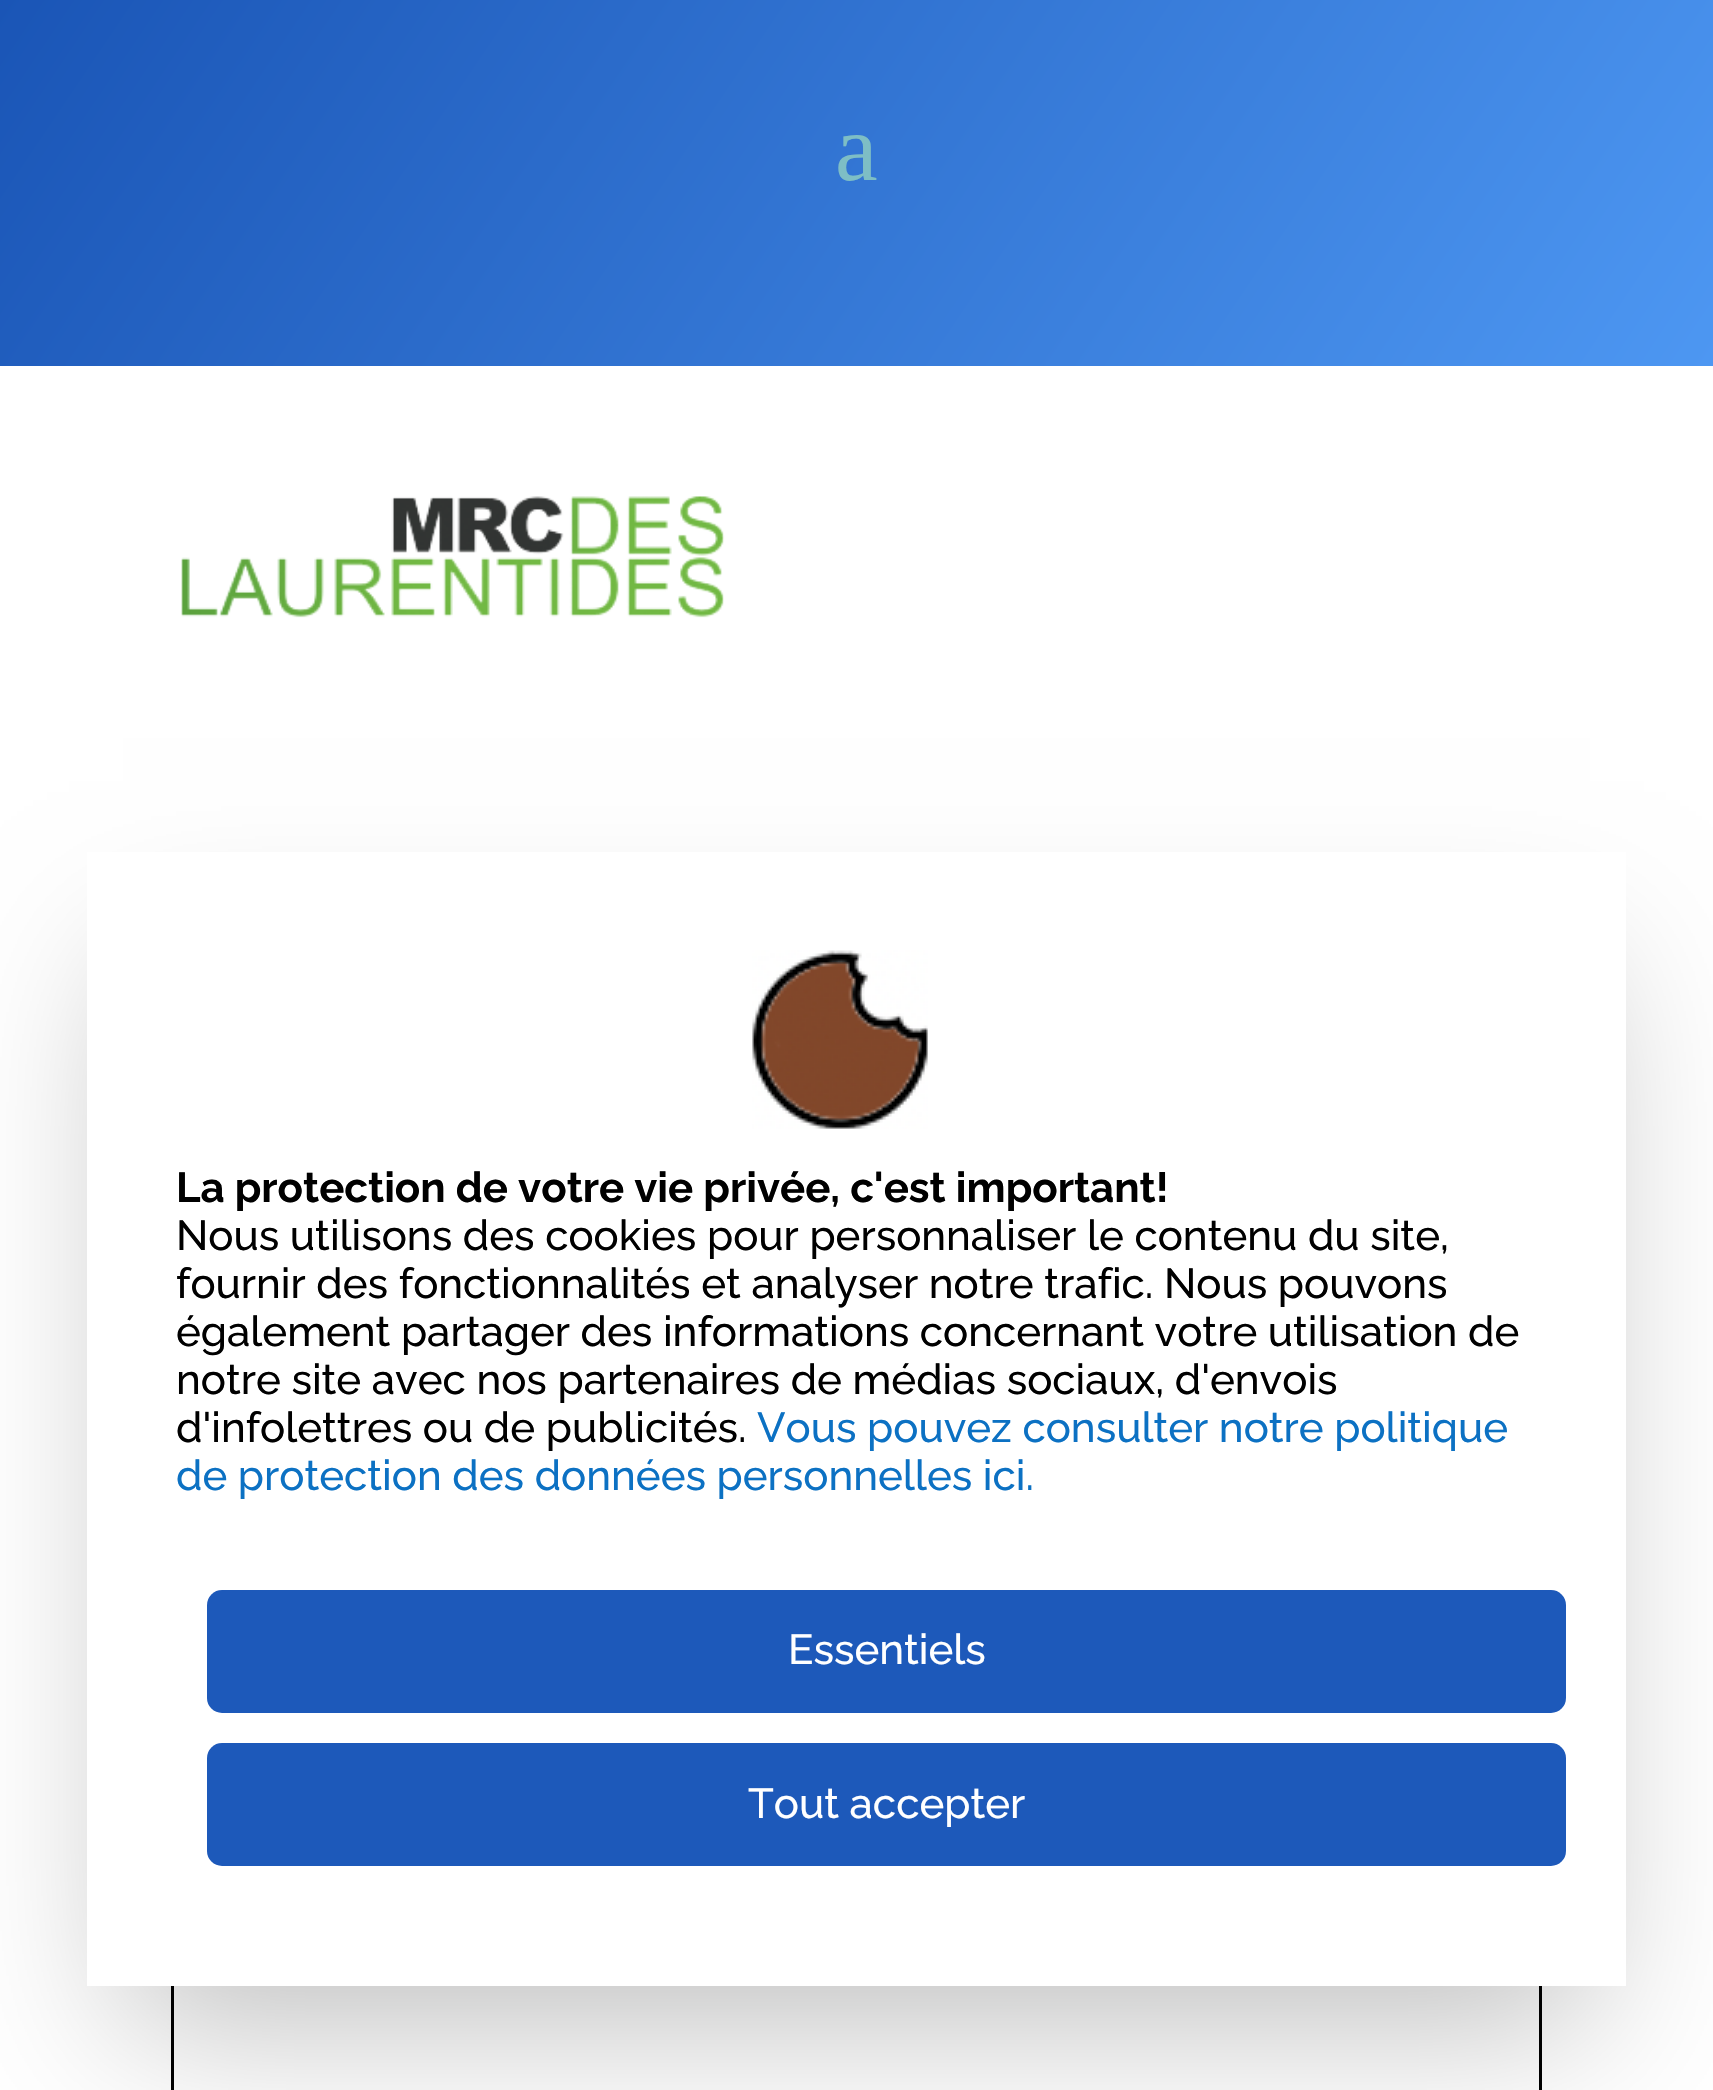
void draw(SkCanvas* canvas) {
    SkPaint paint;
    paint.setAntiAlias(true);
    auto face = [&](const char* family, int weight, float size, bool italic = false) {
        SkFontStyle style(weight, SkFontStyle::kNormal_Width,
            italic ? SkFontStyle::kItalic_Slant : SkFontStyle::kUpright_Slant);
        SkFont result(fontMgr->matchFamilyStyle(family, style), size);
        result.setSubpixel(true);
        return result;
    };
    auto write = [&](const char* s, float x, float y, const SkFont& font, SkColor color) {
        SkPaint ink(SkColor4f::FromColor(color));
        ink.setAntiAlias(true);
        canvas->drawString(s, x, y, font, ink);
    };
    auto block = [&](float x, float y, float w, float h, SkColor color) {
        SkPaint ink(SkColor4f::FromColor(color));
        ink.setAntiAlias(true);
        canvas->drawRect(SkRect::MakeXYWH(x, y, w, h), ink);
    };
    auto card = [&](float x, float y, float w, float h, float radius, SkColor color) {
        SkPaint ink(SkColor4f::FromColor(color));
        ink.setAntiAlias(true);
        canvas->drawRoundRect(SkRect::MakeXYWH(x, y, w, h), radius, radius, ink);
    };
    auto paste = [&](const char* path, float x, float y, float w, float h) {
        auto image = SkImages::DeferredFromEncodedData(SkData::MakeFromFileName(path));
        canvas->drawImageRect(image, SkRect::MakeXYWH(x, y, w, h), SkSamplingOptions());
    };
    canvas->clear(SK_ColorWHITE);
    {
        const SkColor colors[] = {SkColorSetRGB(26, 85, 182), SkColorSetRGB(77, 151, 242)};
        const float stops[] = {0, 1};
        const SkPoint ends[] = {{183, -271}, {1530, 637}};
        paint.setShader(SkGradientShader::MakeLinear(ends, colors, stops, 2, SkTileMode::kClamp));
        paint.setAlpha(255);
    }
    canvas->drawRect(SkRect::MakeXYWH(0, 0, 1713, 366), paint);
    auto kFont1 = face("Liberation Serif", 400, 96);
    write("a", 835, 180, kFont1, SkColorSetRGB(126, 190, 197));
    paste("pic1.png", 181, 496, 544, 122);
    paste("pic2.png", 171, 1986, 1371, 104);
    paint.setShader(nullptr);
    paint.setColor(SkColorSetARGB(64, 0, 0, 0));
    paint.setMaskFilter(SkMaskFilter::MakeBlur(kNormal_SkBlurStyle, 75));
    canvas->drawRect(SkRect::MakeXYWH(123, 963, 1467, 1062), paint);
    paint.setMaskFilter(nullptr);
    block(87, 852, 1539, 1134, SK_ColorWHITE);
    paste("pic3.png", 752, 950, 176, 179);
    auto kFont2 = face("Raleway", 700, 42);
    write("La protection de votre vie privée, c'est important!", 176, 1202, kFont2, SK_ColorBLACK);
    auto kFont3 = face("Raleway", 500, 42);
    write("Nous utilisons des cookies pour personnaliser le contenu du site,", 176, 1250, kFont3, SK_ColorBLACK);
    write("fournir des fonctionnalités et analyser notre trafic. Nous pouvons", 176, 1298, kFont3, SK_ColorBLACK);
    write("également partager des informations concernant votre utilisation de", 176, 1346, kFont3, SK_ColorBLACK);
    write("notre site avec nos partenaires de médias sociaux, d'envois", 176, 1394, kFont3, SK_ColorBLACK);
    write("d'infolettres ou de publicités.", 176, 1442, kFont3, SK_ColorBLACK);
    write("Vous pouvez consulter notre politique", 757, 1442, kFont3, SkColorSetRGB(12, 113, 195));
    write("de protection des données personnelles ici.", 176, 1490, kFont3, SkColorSetRGB(12, 113, 195));
    card(207, 1590, 1359, 123, 15, SkColorSetRGB(29, 89, 186));
    write("Essentiels", 788, 1664, kFont3, SK_ColorWHITE);
    card(207, 1743, 1359, 123, 15, SkColorSetRGB(29, 89, 186));
    write("Tout accepter", 748, 1818, kFont3, SK_ColorWHITE);
}
